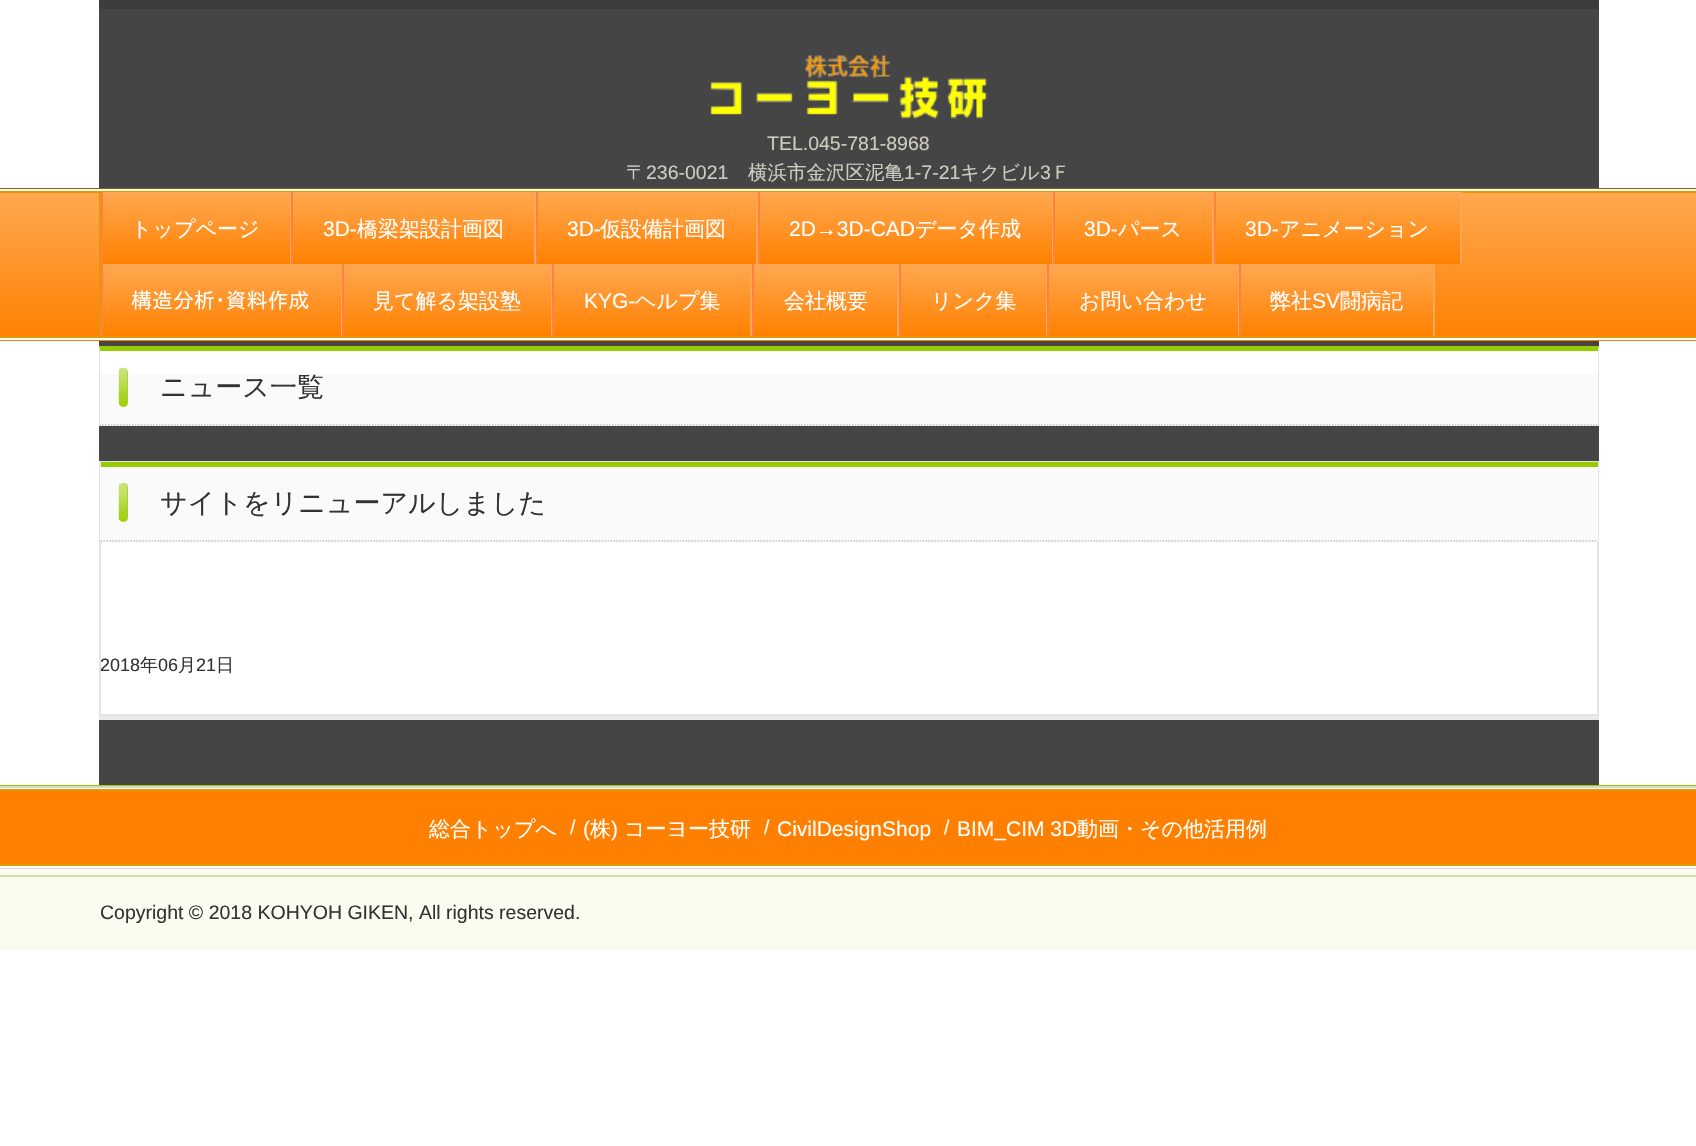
void draw(SkCanvas* canvas) {
    SkPaint paint;
    paint.setAntiAlias(true);
    auto face = [&](const char* family, int weight, float size, bool italic = false) {
        SkFontStyle style(weight, SkFontStyle::kNormal_Width,
            italic ? SkFontStyle::kItalic_Slant : SkFontStyle::kUpright_Slant);
        SkFont result(fontMgr->matchFamilyStyle(family, style), size);
        result.setSubpixel(true);
        return result;
    };
    auto write = [&](const char* s, float x, float y, const SkFont& font, SkColor color) {
        SkPaint ink(SkColor4f::FromColor(color));
        ink.setAntiAlias(true);
        canvas->drawString(s, x, y, font, ink);
    };
    auto block = [&](float x, float y, float w, float h, SkColor color) {
        SkPaint ink(SkColor4f::FromColor(color));
        ink.setAntiAlias(true);
        canvas->drawRect(SkRect::MakeXYWH(x, y, w, h), ink);
    };
    auto card = [&](float x, float y, float w, float h, float radius, SkColor color) {
        SkPaint ink(SkColor4f::FromColor(color));
        ink.setAntiAlias(true);
        canvas->drawRoundRect(SkRect::MakeXYWH(x, y, w, h), radius, radius, ink);
    };
    auto paste = [&](const char* path, float x, float y, float w, float h) {
        auto image = SkImages::DeferredFromEncodedData(SkData::MakeFromFileName(path));
        canvas->drawImageRect(image, SkRect::MakeXYWH(x, y, w, h), SkSamplingOptions());
    };
    canvas->clear(SK_ColorWHITE);
    block(99, 0, 1500, 9, SkColorSetRGB(60, 60, 60));
    block(99, 9, 1500, 179, SkColorSetRGB(69, 69, 69));
    paste("pic1.png", 710, 55, 278, 64);
    auto kFont1 = face("Liberation Sans", 400, 19.5f);
    write("TEL.045-781-8968", 767, 150, kFont1, SkColorSetRGB(206, 204, 193));
    auto kFont2 = face("WenQuanYi Zen Hei", 500, 19.5f);
    write("〒", 626, 179, kFont2, SkColorSetRGB(206, 204, 193));
    write("236-0021", 646, 179, kFont1, SkColorSetRGB(206, 204, 193));
    write("横浜市金沢区泥亀", 748, 179, kFont2, SkColorSetRGB(206, 204, 193));
    write("1-7-21", 904, 179, kFont1, SkColorSetRGB(206, 204, 193));
    write("キクビル", 960, 179, kFont2, SkColorSetRGB(206, 204, 193));
    write("3", 1040, 179, kFont1, SkColorSetRGB(206, 204, 193));
    write("Ｆ", 1051, 179, kFont2, SkColorSetRGB(206, 204, 193));
    block(99, 341, 1500, 444, SkColorSetRGB(69, 69, 69));
    {
        const SkColor colors[] = {SkColorSetRGB(255, 168, 81), SkColorSetRGB(255, 128, 0)};
        const float stops[] = {0, 1};
        const SkPoint ends[] = {{849, 192}, {849, 342}};
        paint.setShader(SkGradientShader::MakeLinear(ends, colors, stops, 2, SkTileMode::kClamp));
        paint.setAlpha(255);
    }
    canvas->drawRect(SkRect::MakeXYWH(0, 193, 1696, 148), paint);
    block(0, 188, 1696, 1, SkColorSetRGB(170, 85, 0));
    block(99, 192, 2, 144, SkColorSetRGB(227, 153, 4));
    block(0, 191, 1696, 2, SkColorSetRGB(227, 153, 4));
    {
        const SkColor colors[] = {SkColorSetRGB(255, 168, 81), SkColorSetRGB(255, 128, 0)};
        const float stops[] = {0, 1};
        const SkPoint ends[] = {{196, 192}, {196, 264}};
        paint.setShader(SkGradientShader::MakeLinear(ends, colors, stops, 2, SkTileMode::kClamp));
        paint.setAlpha(255);
    }
    canvas->drawRect(SkRect::MakeXYWH(103, 192, 187, 72), paint);
    block(290, 192, 1, 72, SkColorSetRGB(255, 168, 81));
    block(101, 192, 2, 144, SkColorSetRGB(255, 128, 64));
    auto kFont3 = face("WenQuanYi Zen Hei", 500, 21);
    write("トップページ", 131, 236, kFont3, SK_ColorWHITE);
    {
        const SkColor colors[] = {SkColorSetRGB(255, 168, 81), SkColorSetRGB(255, 128, 0)};
        const float stops[] = {0, 1};
        const SkPoint ends[] = {{413, 192}, {413, 264}};
        paint.setShader(SkGradientShader::MakeLinear(ends, colors, stops, 2, SkTileMode::kClamp));
        paint.setAlpha(255);
    }
    canvas->drawRect(SkRect::MakeXYWH(293, 192, 241, 72), paint);
    block(534, 192, 2, 72, SkColorSetRGB(255, 168, 81));
    block(291, 192, 2, 72, SkColorSetRGB(255, 128, 64));
    auto kFont4 = face("Liberation Sans", 400, 21);
    write("3D-", 323, 236, kFont4, SK_ColorWHITE);
    write("橋梁架設計画図", 357, 236, kFont3, SK_ColorWHITE);
    {
        const SkColor colors[] = {SkColorSetRGB(255, 168, 81), SkColorSetRGB(255, 128, 0)};
        const float stops[] = {0, 1};
        const SkPoint ends[] = {{647, 192}, {647, 264}};
        paint.setShader(SkGradientShader::MakeLinear(ends, colors, stops, 2, SkTileMode::kClamp));
        paint.setAlpha(255);
    }
    canvas->drawRect(SkRect::MakeXYWH(538, 192, 218, 72), paint);
    block(756, 192, 2, 72, SkColorSetRGB(255, 168, 81));
    block(536, 192, 2, 72, SkColorSetRGB(255, 128, 64));
    write("3D-", 567, 236, kFont4, SK_ColorWHITE);
    write("仮設備計画図", 600, 236, kFont3, SK_ColorWHITE);
    {
        const SkColor colors[] = {SkColorSetRGB(255, 168, 81), SkColorSetRGB(255, 128, 0)};
        const float stops[] = {0, 1};
        const SkPoint ends[] = {{905, 192}, {905, 264}};
        paint.setShader(SkGradientShader::MakeLinear(ends, colors, stops, 2, SkTileMode::kClamp));
        paint.setAlpha(255);
    }
    canvas->drawRect(SkRect::MakeXYWH(760, 192, 292, 72), paint);
    block(1052, 192, 1, 72, SkColorSetRGB(255, 168, 81));
    block(758, 192, 2, 72, SkColorSetRGB(255, 128, 64));
    write("2D→3D-CAD", 789, 236, kFont4, SK_ColorWHITE);
    write("データ作成", 915, 236, kFont3, SK_ColorWHITE);
    {
        const SkColor colors[] = {SkColorSetRGB(255, 168, 81), SkColorSetRGB(255, 128, 0)};
        const float stops[] = {0, 1};
        const SkPoint ends[] = {{1133, 192}, {1133, 264}};
        paint.setShader(SkGradientShader::MakeLinear(ends, colors, stops, 2, SkTileMode::kClamp));
        paint.setAlpha(255);
    }
    canvas->drawRect(SkRect::MakeXYWH(1055, 192, 157, 72), paint);
    block(1212, 192, 2, 72, SkColorSetRGB(255, 168, 81));
    block(1053, 192, 2, 72, SkColorSetRGB(255, 128, 64));
    write("3D-", 1084, 236, kFont4, SK_ColorWHITE);
    write("パース", 1118, 236, kFont3, SK_ColorWHITE);
    {
        const SkColor colors[] = {SkColorSetRGB(255, 168, 81), SkColorSetRGB(255, 128, 0)};
        const float stops[] = {0, 1};
        const SkPoint ends[] = {{1337, 192}, {1337, 264}};
        paint.setShader(SkGradientShader::MakeLinear(ends, colors, stops, 2, SkTileMode::kClamp));
        paint.setAlpha(255);
    }
    canvas->drawRect(SkRect::MakeXYWH(1216, 192, 244, 72), paint);
    block(1460, 192, 2, 72, SkColorSetRGB(255, 168, 81));
    block(1214, 192, 2, 72, SkColorSetRGB(255, 128, 64));
    write("3D-", 1245, 236, kFont4, SK_ColorWHITE);
    write("アニメーション", 1279, 236, kFont3, SK_ColorWHITE);
    {
        const SkColor colors[] = {SkColorSetRGB(255, 168, 81), SkColorSetRGB(255, 128, 0)};
        const float stops[] = {0, 1};
        const SkPoint ends[] = {{221, 264}, {221, 336}};
        paint.setShader(SkGradientShader::MakeLinear(ends, colors, stops, 2, SkTileMode::kClamp));
        paint.setAlpha(255);
    }
    canvas->drawRect(SkRect::MakeXYWH(103, 264, 238, 72), paint);
    block(341, 264, 1, 72, SkColorSetRGB(255, 168, 81));
    auto kFont5 = face("IPAPGothic", 400, 21);
    write("構造分析･資料作成", 131, 308, kFont5, SK_ColorWHITE);
    {
        const SkColor colors[] = {SkColorSetRGB(255, 168, 81), SkColorSetRGB(255, 128, 0)};
        const float stops[] = {0, 1};
        const SkPoint ends[] = {{447, 264}, {447, 336}};
        paint.setShader(SkGradientShader::MakeLinear(ends, colors, stops, 2, SkTileMode::kClamp));
        paint.setAlpha(255);
    }
    canvas->drawRect(SkRect::MakeXYWH(344, 264, 207, 72), paint);
    block(551, 264, 1, 72, SkColorSetRGB(255, 168, 81));
    block(342, 264, 2, 72, SkColorSetRGB(255, 128, 64));
    write("見て解る架設塾", 373, 308, kFont3, SK_ColorWHITE);
    {
        const SkColor colors[] = {SkColorSetRGB(255, 168, 81), SkColorSetRGB(255, 128, 0)};
        const float stops[] = {0, 1};
        const SkPoint ends[] = {{652, 264}, {652, 336}};
        paint.setShader(SkGradientShader::MakeLinear(ends, colors, stops, 2, SkTileMode::kClamp));
        paint.setAlpha(255);
    }
    canvas->drawRect(SkRect::MakeXYWH(554, 264, 196, 72), paint);
    block(750, 264, 2, 72, SkColorSetRGB(255, 168, 81));
    block(552, 264, 2, 72, SkColorSetRGB(255, 128, 64));
    write("KYG-", 584, 308, kFont4, SK_ColorWHITE);
    write("ヘルプ集", 635, 308, kFont3, SK_ColorWHITE);
    {
        const SkColor colors[] = {SkColorSetRGB(255, 168, 81), SkColorSetRGB(255, 128, 0)};
        const float stops[] = {0, 1};
        const SkPoint ends[] = {{825, 264}, {825, 336}};
        paint.setShader(SkGradientShader::MakeLinear(ends, colors, stops, 2, SkTileMode::kClamp));
        paint.setAlpha(255);
    }
    canvas->drawRect(SkRect::MakeXYWH(754, 264, 143, 72), paint);
    block(897, 264, 2, 72, SkColorSetRGB(255, 168, 81));
    block(752, 264, 2, 72, SkColorSetRGB(255, 128, 64));
    write("会社概要", 784, 308, kFont3, SK_ColorWHITE);
    {
        const SkColor colors[] = {SkColorSetRGB(255, 168, 81), SkColorSetRGB(255, 128, 0)};
        const float stops[] = {0, 1};
        const SkPoint ends[] = {{973, 264}, {973, 336}};
        paint.setShader(SkGradientShader::MakeLinear(ends, colors, stops, 2, SkTileMode::kClamp));
        paint.setAlpha(255);
    }
    canvas->drawRect(SkRect::MakeXYWH(901, 264, 145, 72), paint);
    block(1046, 264, 1, 72, SkColorSetRGB(255, 168, 81));
    block(899, 264, 2, 72, SkColorSetRGB(255, 128, 64));
    write("リンク集", 931, 308, kFont3, SK_ColorWHITE);
    {
        const SkColor colors[] = {SkColorSetRGB(255, 168, 81), SkColorSetRGB(255, 128, 0)};
        const float stops[] = {0, 1};
        const SkPoint ends[] = {{1143, 264}, {1143, 336}};
        paint.setShader(SkGradientShader::MakeLinear(ends, colors, stops, 2, SkTileMode::kClamp));
        paint.setAlpha(255);
    }
    canvas->drawRect(SkRect::MakeXYWH(1049, 264, 189, 72), paint);
    block(1238, 264, 1, 72, SkColorSetRGB(255, 168, 81));
    block(1047, 264, 2, 72, SkColorSetRGB(255, 128, 64));
    write("お問い合わせ", 1079, 308, kFont3, SK_ColorWHITE);
    {
        const SkColor colors[] = {SkColorSetRGB(255, 168, 81), SkColorSetRGB(255, 128, 0)};
        const float stops[] = {0, 1};
        const SkPoint ends[] = {{1337, 264}, {1337, 336}};
        paint.setShader(SkGradientShader::MakeLinear(ends, colors, stops, 2, SkTileMode::kClamp));
        paint.setAlpha(255);
    }
    canvas->drawRect(SkRect::MakeXYWH(1241, 264, 192, 72), paint);
    block(1433, 264, 2, 72, SkColorSetRGB(255, 168, 81));
    block(1239, 264, 2, 72, SkColorSetRGB(255, 128, 64));
    write("弊社", 1270, 308, kFont3, SK_ColorWHITE);
    write("SV", 1312, 308, kFont4, SK_ColorWHITE);
    write("闘病記", 1340, 308, kFont3, SK_ColorWHITE);
    block(0, 336, 1696, 2, SkColorSetRGB(227, 153, 4));
    block(0, 338, 1696, 2, SK_ColorWHITE);
    block(99, 347, 1500, 27, SK_ColorWHITE);
    block(99, 374, 1500, 52, SkColorSetRGB(250, 250, 250));
    paint.setShader(nullptr);
    paint.setColor(SkColorSetRGB(151, 202, 0));
    canvas->drawPath(SkPathBuilder().moveTo(99, 346).lineTo(1599, 346).lineTo(1598, 351).lineTo(100, 351).close().detach(), paint);
    paint.setColor(SkColorSetRGB(227, 227, 227));
    canvas->drawPath(SkPathBuilder().moveTo(1599, 346).lineTo(1599, 426).lineTo(1598, 424).lineTo(1598, 351).close().detach(), paint);
    paint.setStyle(SkPaint::kStroke_Style);
    paint.setStrokeWidth(1.5f);
    paint.setColor(SkColorSetRGB(195, 192, 179));
    paint.setPathEffect(SkDashPathEffect::Make({{1.5f, 1.5f}}, 0));
    canvas->drawPath(SkPathBuilder().moveTo(99, 425).lineTo(1599, 425).detach(), paint);
    paint.setPathEffect(nullptr);
    paint.setStyle(SkPaint::kFill_Style);
    paint.setColor(SkColorSetRGB(227, 227, 227));
    canvas->drawPath(SkPathBuilder().moveTo(99, 426).lineTo(99, 346).lineTo(100, 351).lineTo(100, 424).close().detach(), paint);
    card(119, 368, 9, 39, 4.5f, SkColorSetRGB(164, 209, 25));
    paste("pic2.png", 118, 367, 10, 38);
    auto kFont6 = face("WenQuanYi Zen Hei", 500, 27);
    write("ニュース一覧", 160, 396, kFont6, SkColorSetRGB(51, 51, 51));
    block(99, 716, 1500, 4, SkColorSetRGB(234, 234, 234));
    block(101, 542, 1496, 172, SK_ColorWHITE);
    paint.setStyle(SkPaint::kStroke_Style);
    paint.setStrokeWidth(2);
    canvas->drawRect(SkRect::MakeXYWH(100, 462, 1498, 253), paint);
    block(1597, 467, 1, 75, SK_ColorWHITE);
    block(100, 466, 1497, 76, SkColorSetRGB(250, 250, 250));
    block(101, 462, 1497, 5, SkColorSetRGB(151, 202, 0));
    paint.setStrokeWidth(1.5f);
    paint.setColor(SkColorSetRGB(195, 192, 179));
    paint.setPathEffect(SkDashPathEffect::Make({{1.5f, 1.5f}}, 0));
    canvas->drawPath(SkPathBuilder().moveTo(100.5f, 541).lineTo(1597.5f, 541).detach(), paint);
    paint.setPathEffect(nullptr);
    card(119, 483, 9, 39, 4.5f, SkColorSetRGB(164, 209, 25));
    paste("pic3.png", 118, 483, 10, 38);
    write("サイトをリニューアルしました", 160, 512, kFont6, SkColorSetRGB(51, 51, 51));
    auto kFont7 = face("Liberation Sans", 400, 18);
    write("2018", 100, 671, kFont7, SkColorSetRGB(51, 51, 51));
    auto kFont8 = face("WenQuanYi Zen Hei", 500, 18);
    write("年", 140, 671, kFont8, SkColorSetRGB(51, 51, 51));
    write("06", 158, 671, kFont7, SkColorSetRGB(51, 51, 51));
    write("月", 178, 671, kFont8, SkColorSetRGB(51, 51, 51));
    write("21", 196, 671, kFont7, SkColorSetRGB(51, 51, 51));
    write("日", 216, 671, kFont8, SkColorSetRGB(51, 51, 51));
    block(0, 869, 1696, 81, SkColorSetRGB(249, 252, 238));
    block(0, 785, 1696, 1, SkColorSetRGB(151, 202, 0));
    block(0, 791, 1696, 73, SkColorSetRGB(255, 128, 0));
    block(0, 786, 1696, 2, SkColorSetRGB(215, 215, 215));
    block(0, 868, 1696, 1, SkColorSetRGB(215, 215, 215));
    block(0, 789, 1696, 2, SkColorSetRGB(227, 153, 4));
    write("総合トップへ", 429, 836, kFont3, SK_ColorWHITE);
    write("/", 570, 834, kFont1, SK_ColorWHITE);
    write("(", 583, 836, kFont4, SK_ColorWHITE);
    write("株", 590, 836, kFont3, SK_ColorWHITE);
    write(")", 611, 836, kFont4, SK_ColorWHITE);
    write("コーヨー技研", 624, 836, kFont3, SK_ColorWHITE);
    write("/", 764, 834, kFont1, SK_ColorWHITE);
    write("CivilDesignShop", 777, 836, kFont4, SK_ColorWHITE);
    write("/", 944, 834, kFont1, SK_ColorWHITE);
    write("BIM_CIM 3D", 957, 836, kFont4, SK_ColorWHITE);
    write("動画・その他活用例", 1077, 836, kFont3, SK_ColorWHITE);
    block(0, 864, 1696, 2, SkColorSetRGB(227, 153, 4));
    block(0, 875, 1696, 2, SkColorSetRGB(208, 219, 177));
    write("Copyright © 2018 KOHYOH GIKEN, All rights reserved.", 100, 919, kFont1, SkColorSetRGB(51, 51, 51));
}
